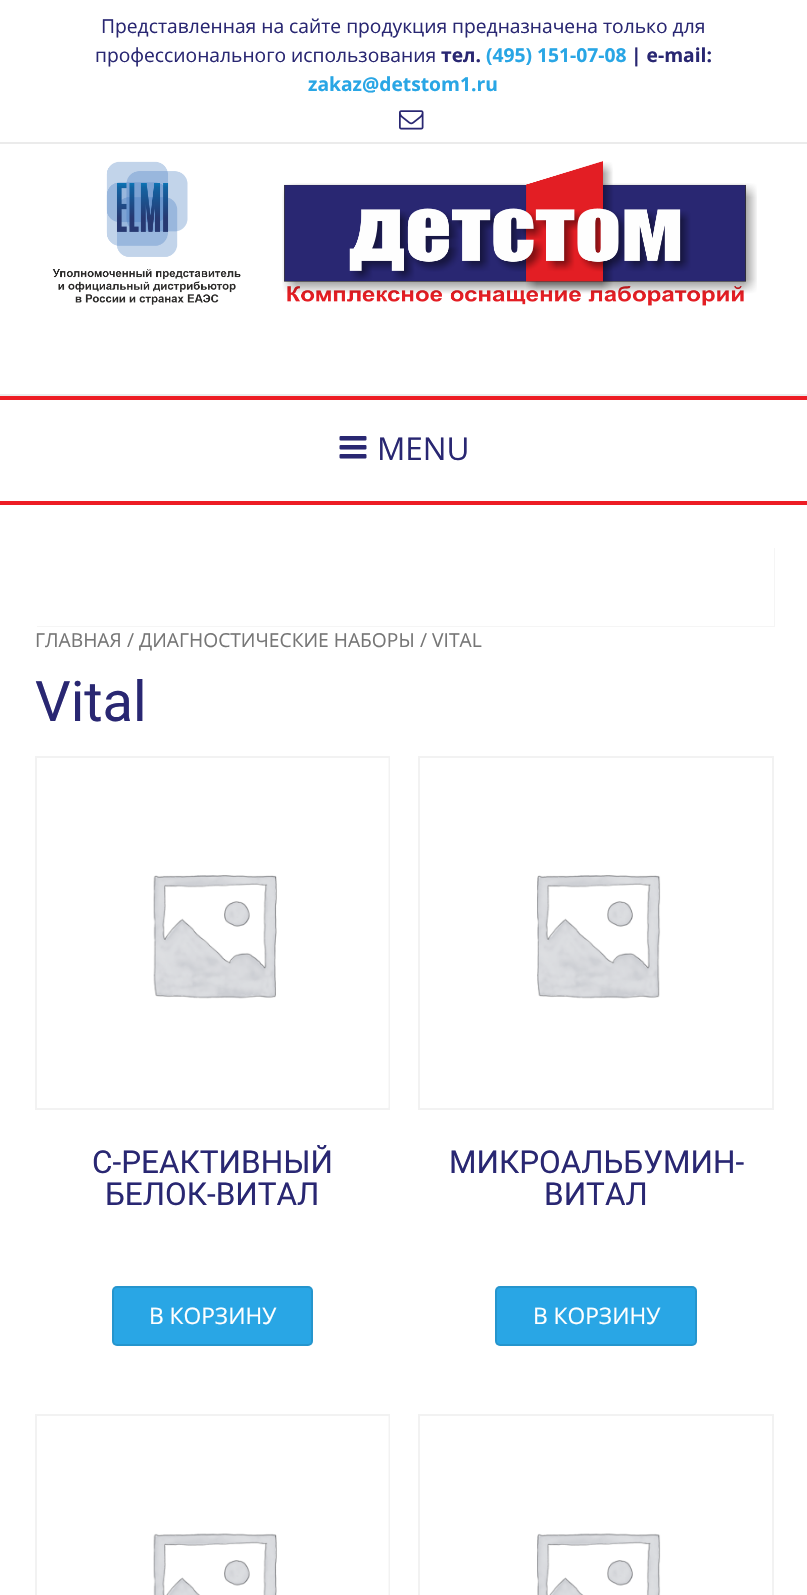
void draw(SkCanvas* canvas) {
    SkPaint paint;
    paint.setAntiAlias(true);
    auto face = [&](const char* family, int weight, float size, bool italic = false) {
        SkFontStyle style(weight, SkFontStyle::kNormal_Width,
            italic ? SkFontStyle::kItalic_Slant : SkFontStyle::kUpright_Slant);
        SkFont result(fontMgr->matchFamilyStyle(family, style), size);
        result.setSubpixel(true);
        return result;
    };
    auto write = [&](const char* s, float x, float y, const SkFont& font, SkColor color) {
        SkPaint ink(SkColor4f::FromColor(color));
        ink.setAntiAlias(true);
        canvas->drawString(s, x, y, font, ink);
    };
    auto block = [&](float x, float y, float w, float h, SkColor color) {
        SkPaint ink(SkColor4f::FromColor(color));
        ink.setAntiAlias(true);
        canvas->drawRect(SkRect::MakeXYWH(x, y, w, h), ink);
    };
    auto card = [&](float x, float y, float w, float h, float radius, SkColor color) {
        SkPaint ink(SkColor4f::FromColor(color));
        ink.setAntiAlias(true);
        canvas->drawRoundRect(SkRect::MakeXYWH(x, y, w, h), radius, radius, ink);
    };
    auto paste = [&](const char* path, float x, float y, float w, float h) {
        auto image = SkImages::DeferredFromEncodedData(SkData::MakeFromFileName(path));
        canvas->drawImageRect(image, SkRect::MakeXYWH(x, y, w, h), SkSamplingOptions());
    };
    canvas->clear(SK_ColorWHITE);
    block(0, 501, 807, 4, SkColorSetRGB(237, 28, 36));
    block(0, 142, 807, 2, SkColorSetRGB(235, 235, 235));
    auto kFont1 = face("Open Sans", 400, 19.25f);
    write("Представленная на сайте продукция предназначена только для", 101, 33, kFont1, SkColorSetRGB(41, 39, 114));
    write("профессионального использования", 95, 62, kFont1, SkColorSetRGB(41, 39, 114));
    auto kFont2 = face("Open Sans", 700, 19.25f);
    write("тел.", 441, 62, kFont2, SkColorSetRGB(41, 39, 114));
    write("(495) 151-07-08", 486, 62, kFont2, SkColorSetRGB(41, 166, 229));
    write("| e-mail:", 631, 62, kFont2, SkColorSetRGB(41, 39, 114));
    write("zakaz@detstom1.ru", 308, 91, kFont2, SkColorSetRGB(41, 166, 229));
    paste("pic1.png", 399, 110, 25, 20);
    paste("pic2.png", 52, 161, 705, 145);
    paint.setColor(SkColorSetRGB(235, 235, 235));
    canvas->drawPath(SkPathBuilder().moveTo(0, 394).lineTo(0, 396).lineTo(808, 396).lineTo(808, 499).lineTo(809, 499).lineTo(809, 394).close().detach(), paint);
    block(0, 396, 807, 4, SkColorSetRGB(237, 28, 36));
    paste("pic3.png", 339, 436, 28, 23);
    auto kFont3 = face("Open Sans", 400, 31.5f);
    write("MENU", 377, 460, kFont3, SkColorSetRGB(41, 39, 114));
    paint.setColor(SkColorSetRGB(245, 245, 245));
    canvas->drawPath(SkPathBuilder().moveTo(37, 626).lineTo(37, 627).lineTo(775, 627).lineTo(775, 548).lineTo(774, 548).lineTo(774, 626).close().detach(), paint);
    write("ГЛАВНАЯ", 35, 647, kFont1, SkColorSetRGB(118, 118, 118));
    write("/", 127, 647, kFont1, SkColorSetRGB(118, 118, 118));
    write("ДИАГНОСТИЧЕСКИЕ НАБОРЫ", 139, 647, kFont1, SkColorSetRGB(118, 118, 118));
    write("/ VITAL", 420, 647, kFont1, SkColorSetRGB(118, 118, 118));
    auto kFont4 = face("Roboto", 400, 56);
    write("Vital", 35, 721, kFont4, SkColorSetRGB(41, 39, 114));
    paint.setStyle(SkPaint::kStroke_Style);
    paint.setStrokeWidth(2);
    paint.setColor(SkColorSetRGB(242, 242, 242));
    canvas->drawRect(SkRect::MakeXYWH(36, 757, 353, 352), paint);
    paste("pic4.png", 153, 758, 236, 350);
    auto kFont5 = face("Roboto", 400, 31.5f);
    write("С-РЕАКТИВНЫЙ", 92, 1173, kFont5, SkColorSetRGB(41, 39, 114));
    write("БЕЛОК-ВИТАЛ", 105, 1205, kFont5, SkColorSetRGB(41, 39, 114));
    card(112, 1286, 201, 60, 5, SkColorSetRGB(41, 166, 229));
    paint.setColor(SkColorSetARGB(26, 0, 0, 0));
    canvas->drawRoundRect(SkRect::MakeXYWH(113, 1287, 199, 58), 4, 4, paint);
    auto kFont6 = face("Open Sans", 400, 22.75f);
    write("В КОРЗИНУ", 149, 1324, kFont6, SK_ColorWHITE);
    paint.setColor(SkColorSetRGB(242, 242, 242));
    canvas->drawRect(SkRect::MakeXYWH(419, 757, 354, 352), paint);
    paste("pic5.png", 537, 875, 124, 124);
    write("МИКРОАЛЬБУМИН-", 449, 1173, kFont5, SkColorSetRGB(41, 39, 114));
    write("ВИТАЛ", 544, 1205, kFont5, SkColorSetRGB(41, 39, 114));
    card(495, 1286, 202, 60, 5, SkColorSetRGB(41, 166, 229));
    paint.setColor(SkColorSetARGB(26, 0, 0, 0));
    canvas->drawRoundRect(SkRect::MakeXYWH(496, 1287, 200, 58), 4, 4, paint);
    write("В КОРЗИНУ", 533, 1324, kFont6, SK_ColorWHITE);
    paint.setColor(SkColorSetRGB(242, 242, 242));
    canvas->drawRect(SkRect::MakeXYWH(36, 1415, 353, 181), paint);
    paste("pic6.png", 153, 1416, 236, 179);
    canvas->drawRect(SkRect::MakeXYWH(419, 1415, 354, 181), paint);
    paste("pic7.png", 537, 1533, 124, 62);
}
